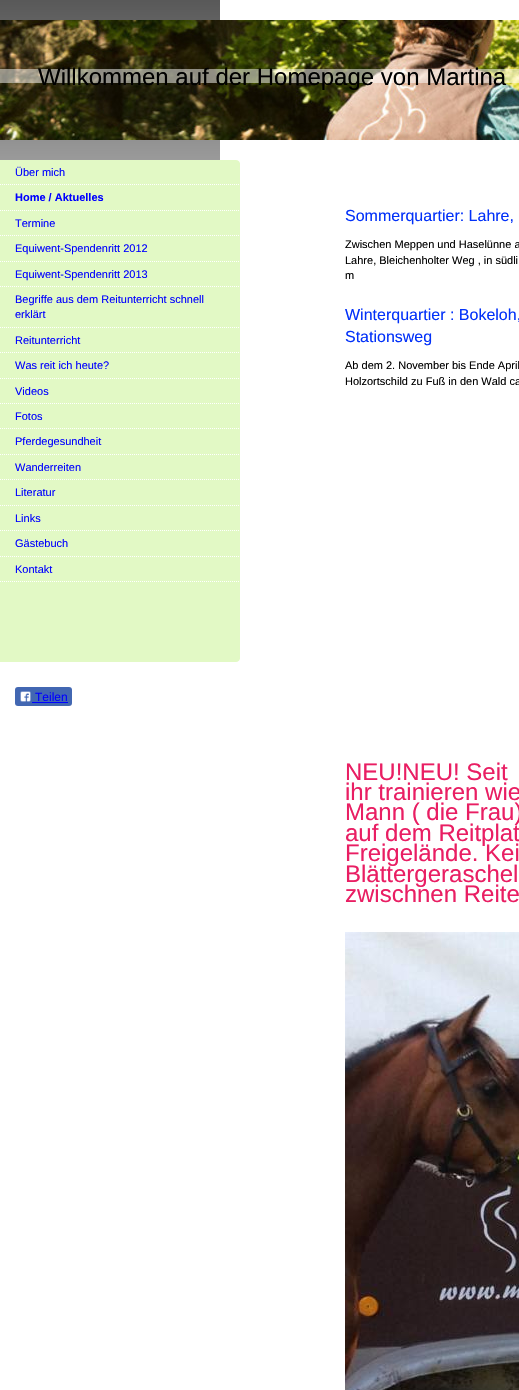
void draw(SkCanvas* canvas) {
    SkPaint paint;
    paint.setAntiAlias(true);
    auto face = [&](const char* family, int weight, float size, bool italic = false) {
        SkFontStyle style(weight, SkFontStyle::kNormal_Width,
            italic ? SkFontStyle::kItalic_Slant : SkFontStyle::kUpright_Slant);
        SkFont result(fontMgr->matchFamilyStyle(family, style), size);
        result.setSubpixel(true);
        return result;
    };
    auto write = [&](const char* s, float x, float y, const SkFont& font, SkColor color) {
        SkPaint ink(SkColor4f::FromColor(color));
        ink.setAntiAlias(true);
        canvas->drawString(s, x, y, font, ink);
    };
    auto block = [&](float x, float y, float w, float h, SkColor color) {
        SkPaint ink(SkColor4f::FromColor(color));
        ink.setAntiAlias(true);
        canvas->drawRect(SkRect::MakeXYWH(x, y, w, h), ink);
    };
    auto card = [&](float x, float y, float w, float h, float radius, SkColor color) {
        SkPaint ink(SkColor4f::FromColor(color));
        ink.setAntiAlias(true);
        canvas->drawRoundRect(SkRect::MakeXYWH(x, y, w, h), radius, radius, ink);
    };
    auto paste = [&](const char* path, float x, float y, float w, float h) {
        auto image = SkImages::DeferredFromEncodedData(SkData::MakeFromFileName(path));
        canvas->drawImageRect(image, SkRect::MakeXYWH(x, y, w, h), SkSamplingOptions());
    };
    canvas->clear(SK_ColorWHITE);
    paste("pic1.png", 0, 0, 220, 160);
    paste("pic2.png", 0, 20, 519, 120);
    block(0, 69, 519, 14, SkColorSetARGB(128, 255, 255, 255));
    auto kFont1 = face("Liberation Sans", 400, 24);
    write("Willkommen auf der Homepage von Martina", 38, 85, kFont1, SK_ColorBLACK);
    block(0, 160, 240, 502, SkColorSetRGB(226, 249, 197));
    paste("pic3.png", 236, 659, 4, 3);
    paste("pic4.png", 236, 160, 4, 3);
    paste("pic5.png", 0, 184, 239, 1);
    auto kFont2 = face("Liberation Sans", 400, 11);
    write("Über mich", 15, 176, kFont2, SkColorSetRGB(0, 0, 255));
    paste("pic5.png", 0, 210, 239, 1);
    auto kFont3 = face("Liberation Sans", 700, 11);
    write("Home / Aktuelles", 15, 201, kFont3, SkColorSetRGB(0, 0, 255));
    paste("pic5.png", 0, 235, 239, 1);
    write("Termine", 15, 227, kFont2, SkColorSetRGB(0, 0, 255));
    paste("pic5.png", 0, 261, 239, 1);
    write("Equiwent-Spendenritt 2012", 15, 252, kFont2, SkColorSetRGB(0, 0, 255));
    paste("pic5.png", 0, 286, 239, 1);
    write("Equiwent-Spendenritt 2013", 15, 278, kFont2, SkColorSetRGB(0, 0, 255));
    paste("pic5.png", 0, 327, 239, 1);
    write("Begriffe aus dem Reitunterricht schnell", 15, 303, kFont2, SkColorSetRGB(0, 0, 255));
    write("erklärt", 15, 318, kFont2, SkColorSetRGB(0, 0, 255));
    paste("pic5.png", 0, 352, 239, 1);
    write("Reitunterricht", 15, 344, kFont2, SkColorSetRGB(0, 0, 255));
    paste("pic5.png", 0, 378, 239, 1);
    write("Was reit ich heute?", 15, 369, kFont2, SkColorSetRGB(0, 0, 255));
    paste("pic5.png", 0, 403, 239, 1);
    write("Videos", 15, 395, kFont2, SkColorSetRGB(0, 0, 255));
    paste("pic5.png", 0, 428, 239, 1);
    write("Fotos", 15, 420, kFont2, SkColorSetRGB(0, 0, 255));
    paste("pic5.png", 0, 454, 239, 1);
    write("Pferdegesundheit", 15, 445, kFont2, SkColorSetRGB(0, 0, 255));
    paste("pic5.png", 0, 479, 239, 1);
    write("Wanderreiten", 15, 471, kFont2, SkColorSetRGB(0, 0, 255));
    paste("pic5.png", 0, 505, 239, 1);
    write("Literatur", 15, 496, kFont2, SkColorSetRGB(0, 0, 255));
    paste("pic5.png", 0, 530, 239, 1);
    write("Links", 15, 522, kFont2, SkColorSetRGB(0, 0, 255));
    paste("pic5.png", 0, 556, 239, 1);
    write("Gästebuch", 15, 547, kFont2, SkColorSetRGB(0, 0, 255));
    paste("pic5.png", 0, 581, 239, 1);
    write("Kontakt", 15, 573, kFont2, SkColorSetRGB(0, 0, 255));
    card(15, 687, 57, 19, 3, SkColorSetRGB(66, 103, 178));
    paste("pic6.png", 20, 691, 11, 11);
    auto kFont4 = face("Liberation Sans", 400, 12);
    write("Teilen", 35, 701, kFont4, SkColorSetRGB(0, 0, 255));
    block(32, 702, 36, 1, SkColorSetRGB(0, 0, 255));
    auto kFont5 = face("Liberation Sans", 400, 16);
    write("Sommerquartier: Lahre,", 345, 221, kFont5, SkColorSetRGB(2, 49, 249));
    write("Zwischen Meppen und Haselünne a", 345, 248, kFont2, SK_ColorBLACK);
    write("Lahre, Bleichenholter Weg , in südli", 345, 264, kFont2, SK_ColorBLACK);
    write("m", 345, 279, kFont2, SK_ColorBLACK);
    write("Winterquartier : Bokeloh,", 345, 320, kFont5, SkColorSetRGB(2, 49, 249));
    write("Stationsweg", 345, 342, kFont5, SkColorSetRGB(2, 49, 249));
    write("Ab dem 2. November bis Ende April", 345, 369, kFont2, SK_ColorBLACK);
    write("Holzortschild zu Fuß in den Wald ca", 345, 385, kFont2, SK_ColorBLACK);
    write("NEU!NEU! Seit", 345, 780, kFont1, SkColorSetRGB(233, 30, 99));
    write("ihr trainieren wie", 345, 800, kFont1, SkColorSetRGB(233, 30, 99));
    write("Mann ( die Frau)", 345, 820, kFont1, SkColorSetRGB(233, 30, 99));
    write("auf dem Reitplat", 345, 841, kFont1, SkColorSetRGB(233, 30, 99));
    write("Freigelände. Kei", 345, 861, kFont1, SkColorSetRGB(233, 30, 99));
    write("Blättergeraschel", 345, 882, kFont1, SkColorSetRGB(233, 30, 99));
    write("zwischnen Reite", 345, 902, kFont1, SkColorSetRGB(233, 30, 99));
    paste("pic7.png", 345, 932, 174, 458);
}
